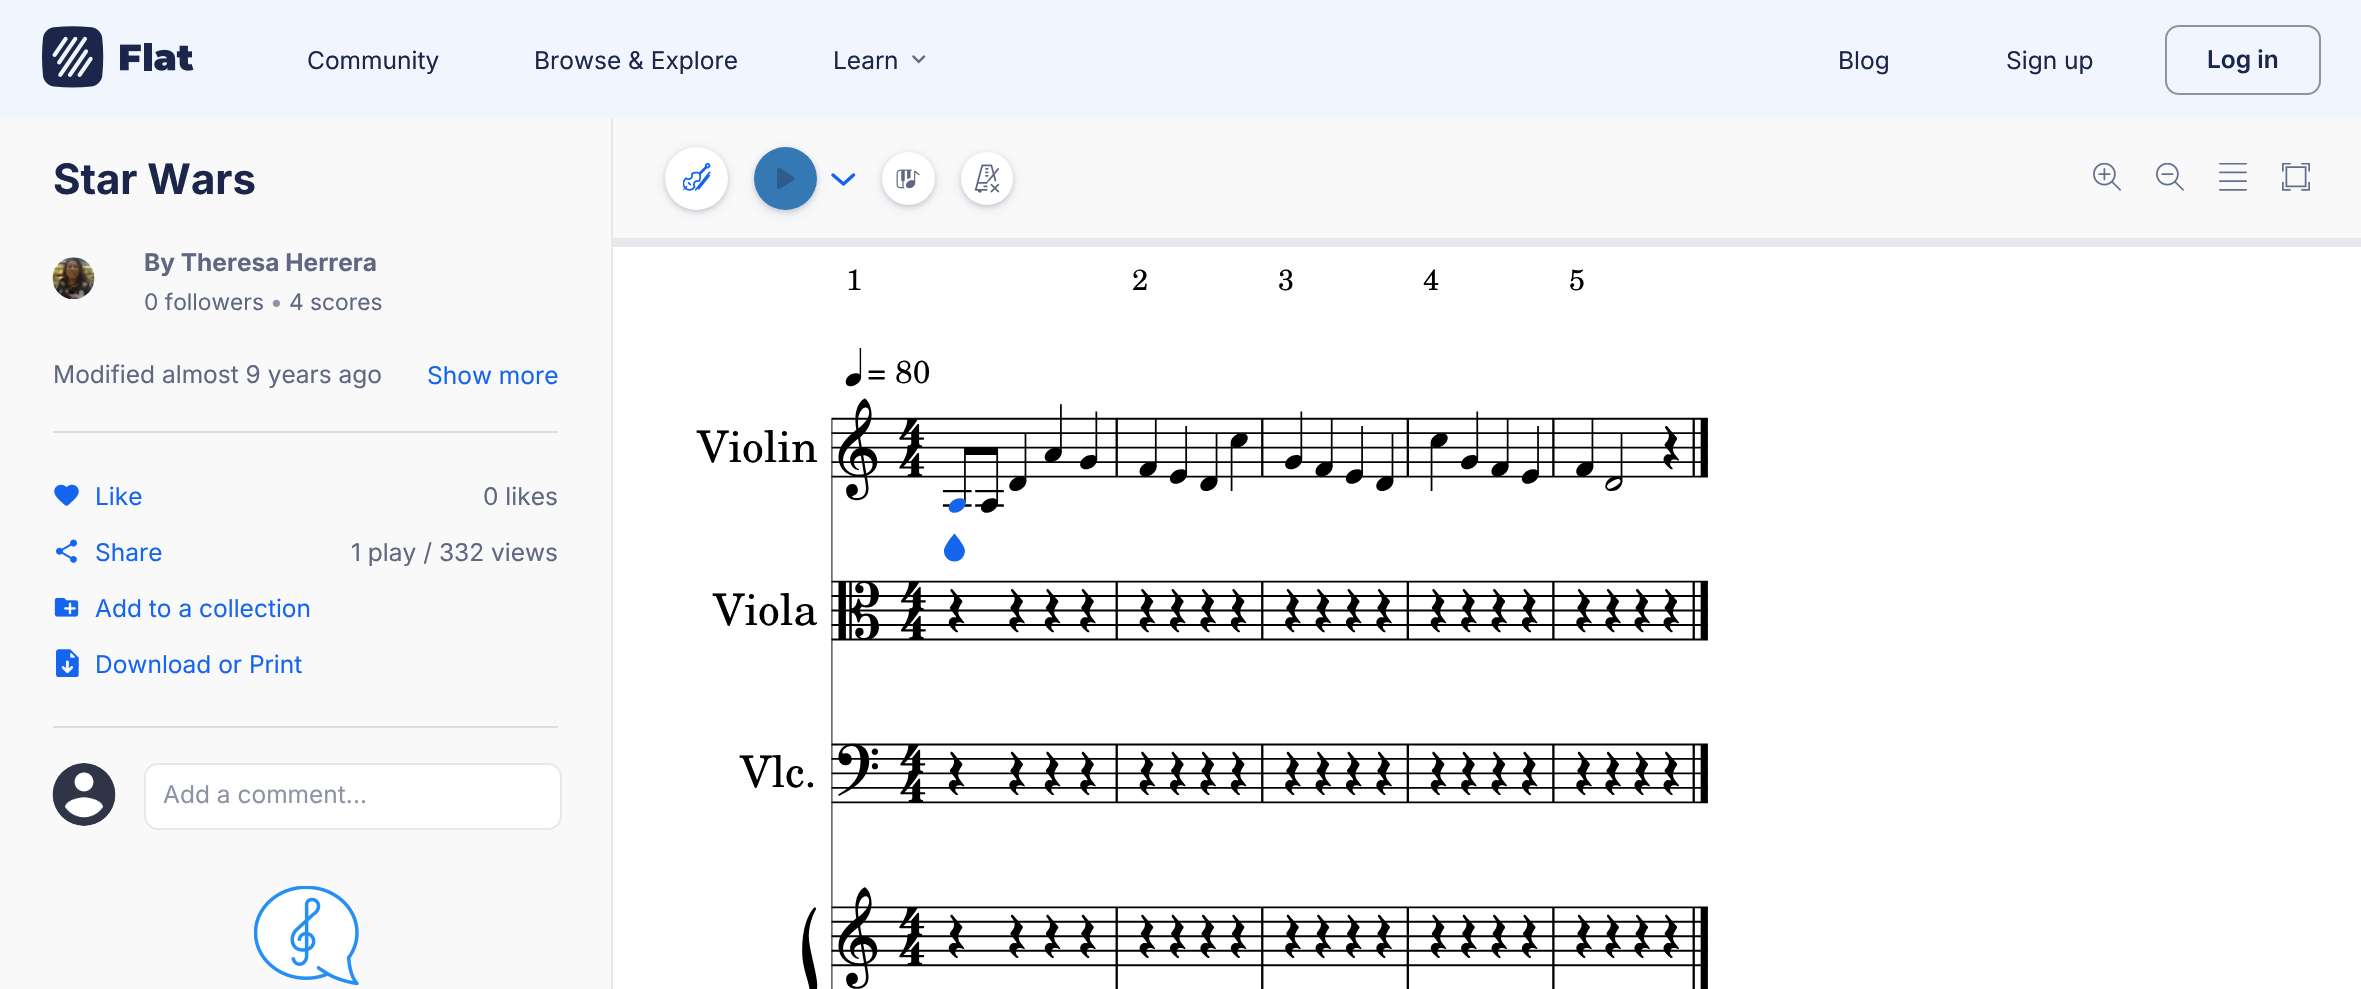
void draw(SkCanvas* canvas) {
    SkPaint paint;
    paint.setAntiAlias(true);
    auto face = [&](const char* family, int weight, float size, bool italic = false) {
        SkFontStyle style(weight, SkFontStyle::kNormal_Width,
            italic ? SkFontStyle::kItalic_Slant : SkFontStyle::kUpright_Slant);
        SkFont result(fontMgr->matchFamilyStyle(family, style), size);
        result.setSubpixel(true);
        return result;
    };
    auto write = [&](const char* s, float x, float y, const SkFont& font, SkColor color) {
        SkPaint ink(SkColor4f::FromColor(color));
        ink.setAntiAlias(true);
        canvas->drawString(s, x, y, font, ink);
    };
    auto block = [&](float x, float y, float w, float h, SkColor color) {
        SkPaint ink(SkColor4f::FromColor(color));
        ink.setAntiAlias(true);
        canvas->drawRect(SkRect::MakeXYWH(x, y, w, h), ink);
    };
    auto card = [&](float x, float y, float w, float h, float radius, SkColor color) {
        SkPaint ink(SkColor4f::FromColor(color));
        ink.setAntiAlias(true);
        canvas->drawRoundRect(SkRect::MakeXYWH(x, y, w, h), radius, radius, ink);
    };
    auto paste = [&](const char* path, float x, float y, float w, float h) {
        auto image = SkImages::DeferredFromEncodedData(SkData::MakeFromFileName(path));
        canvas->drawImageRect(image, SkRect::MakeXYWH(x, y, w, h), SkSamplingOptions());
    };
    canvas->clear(SK_ColorWHITE);
    block(0, 0, 2361, 119, SkColorSetRGB(241, 246, 254));
    paste("pic1.png", 42, 26, 152, 62);
    auto kFont1 = face("Inter", 400, 24.5f);
    write("Community", 307, 69, kFont1, SkColorSetRGB(28, 38, 74));
    write("Browse & Explore", 534, 69, kFont1, SkColorSetRGB(28, 38, 74));
    write("Learn", 833, 69, kFont1, SkColorSetRGB(28, 38, 74));
    paste("pic2.png", 912, 55, 14, 9);
    write("Blog", 1838, 69, kFont1, SkColorSetRGB(28, 38, 74));
    write("Sign up", 2006, 69, kFont1, SkColorSetRGB(28, 38, 74));
    paint.setStyle(SkPaint::kStroke_Style);
    paint.setStrokeWidth(2);
    paint.setColor(SkColorSetRGB(141, 147, 165));
    canvas->drawRoundRect(SkRect::MakeXYWH(2166, 26, 154, 68), 13, 13, paint);
    auto kFont2 = face("Inter", 600, 24.5f);
    write("Log in", 2207, 68, kFont2, SkColorSetRGB(28, 38, 74));
    block(0, 119, 611, 870, SkColorSetRGB(249, 249, 250));
    block(611, 119, 2, 870, SkColorSetRGB(231, 232, 236));
    auto kFont3 = face("Inter", 700, 42);
    write("Star Wars", 53, 194, kFont3, SkColorSetRGB(28, 38, 74));
    paint.setStyle(SkPaint::kFill_Style);
    paint.setColor(SK_ColorWHITE);
    canvas->drawCircle(74, 278, 21, paint);
    paste("pic3.png", 52, 257, 43, 43);
    auto kFont4 = face("Inter", 700, 24.5f);
    write("By Theresa Herrera", 144, 271, kFont4, SkColorSetRGB(95, 103, 129));
    auto kFont5 = face("Inter", 400, 22.75f);
    write("0 followers", 144, 310, kFont5, SkColorSetRGB(95, 103, 129));
    write("•", 270, 310, kFont5, SkColorSetRGB(141, 147, 165));
    write("4 scores", 289, 310, kFont5, SkColorSetRGB(95, 103, 129));
    write("Modified almost 9 years ago", 53, 383, kFont1, SkColorSetRGB(95, 103, 129));
    write("Show more", 427, 384, kFont1, SkColorSetRGB(21, 101, 239));
    block(53, 431, 505, 2, SkColorSetRGB(219, 222, 230));
    paste("pic4.png", 54, 484, 25, 22);
    write("Like", 95, 505, kFont1, SkColorSetRGB(21, 101, 239));
    write("0 likes", 483, 505, kFont1, SkColorSetRGB(95, 103, 129));
    paste("pic5.png", 56, 539, 21, 24);
    write("Share", 95, 561, kFont1, SkColorSetRGB(21, 101, 239));
    write("1 play / 332 views", 351, 561, kFont1, SkColorSetRGB(95, 103, 129));
    paste("pic6.png", 54, 597, 25, 20);
    write("Add to a collection", 95, 617, kFont1, SkColorSetRGB(21, 101, 239));
    paste("pic7.png", 56, 649, 23, 28);
    write("Download or Print", 95, 673, kFont1, SkColorSetRGB(21, 101, 239));
    block(53, 726, 505, 2, SkColorSetRGB(219, 222, 230));
    canvas->drawCircle(84.5f, 794.5f, 31.5f, paint);
    paste("pic8.png", 52, 763, 64, 63);
    canvas->drawRoundRect(SkRect::MakeXYWH(145, 764, 416, 65), 13, 13, paint);
    paint.setStyle(SkPaint::kStroke_Style);
    paint.setColor(SkColorSetRGB(231, 232, 236));
    canvas->drawRoundRect(SkRect::MakeXYWH(145, 764, 416, 65), 13, 13, paint);
    write("Add a comment...", 163, 803, kFont1, SkColorSetRGB(141, 147, 165));
    paste("pic9.png", 254, 886, 105, 99);
    block(613, 119, 1748, 119, SkColorSetRGB(249, 249, 250));
    paint.setStyle(SkPaint::kFill_Style);
    paint.setColor(SkColorSetARGB(26, 40, 48, 79));
    paint.setMaskFilter(SkMaskFilter::MakeBlur(kNormal_SkBlurStyle, 7));
    canvas->drawRoundRect(SkRect::MakeXYWH(665, 149, 63, 63), 31.5f, 31.5f, paint);
    paint.setMaskFilter(nullptr);
    paint.setColor(SkColorSetARGB(51, 40, 48, 79));
    paint.setMaskFilter(SkMaskFilter::MakeBlur(kNormal_SkBlurStyle, 2.5f));
    canvas->drawRoundRect(SkRect::MakeXYWH(665, 149, 63, 63), 31.5f, 31.5f, paint);
    paint.setMaskFilter(nullptr);
    paint.setColor(SK_ColorWHITE);
    canvas->drawCircle(696.5f, 178.5f, 31.5f, paint);
    paste("pic10.png", 683, 163, 28, 28);
    paint.setColor(SkColorSetARGB(51, 40, 48, 79));
    paint.setMaskFilter(SkMaskFilter::MakeBlur(kNormal_SkBlurStyle, 2.5f));
    canvas->drawRoundRect(SkRect::MakeXYWH(754, 149, 63, 63), 31.5f, 31.5f, paint);
    paint.setMaskFilter(nullptr);
    paint.setColor(SkColorSetARGB(26, 40, 48, 79));
    paint.setMaskFilter(SkMaskFilter::MakeBlur(kNormal_SkBlurStyle, 7));
    canvas->drawRoundRect(SkRect::MakeXYWH(754, 151, 63, 63), 31.5f, 31.5f, paint);
    paint.setMaskFilter(nullptr);
    paint.setColor(SkColorSetRGB(53, 121, 180));
    canvas->drawCircle(785.5f, 178.5f, 31.5f, paint);
    paste("pic11.png", 777, 167, 18, 23);
    paint.setStyle(SkPaint::kStroke_Style);
    paint.setStrokeWidth(3.5f);
    paint.setStrokeCap(SkPaint::kRound_Cap);
    paint.setStrokeJoin(SkPaint::kRound_Join);
    paint.setColor(SkColorSetRGB(21, 101, 239));
    canvas->drawPath(SkPathBuilder().moveTo(833, 175).lineTo(843.5f, 184).lineTo(853.5f, 175).detach(), paint);
    paint.setStyle(SkPaint::kFill_Style);
    paint.setColor(SkColorSetARGB(51, 40, 48, 79));
    paint.setMaskFilter(SkMaskFilter::MakeBlur(kNormal_SkBlurStyle, 2.5f));
    canvas->drawRoundRect(SkRect::MakeXYWH(882, 154, 53, 53), 26.5f, 26.5f, paint);
    paint.setMaskFilter(nullptr);
    paint.setColor(SkColorSetARGB(26, 40, 48, 79));
    paint.setMaskFilter(SkMaskFilter::MakeBlur(kNormal_SkBlurStyle, 7));
    canvas->drawRoundRect(SkRect::MakeXYWH(882, 156, 53, 52), 26, 26, paint);
    paint.setMaskFilter(nullptr);
    paint.setColor(SK_ColorWHITE);
    canvas->drawCircle(908.5f, 178.5f, 26.5f, paint);
    paste("pic12.png", 896, 169, 24, 20);
    paint.setColor(SkColorSetARGB(51, 40, 48, 79));
    paint.setMaskFilter(SkMaskFilter::MakeBlur(kNormal_SkBlurStyle, 2.5f));
    canvas->drawRoundRect(SkRect::MakeXYWH(961, 154, 52, 53), 26, 26, paint);
    paint.setMaskFilter(nullptr);
    paint.setColor(SkColorSetARGB(26, 40, 48, 79));
    paint.setMaskFilter(SkMaskFilter::MakeBlur(kNormal_SkBlurStyle, 7));
    canvas->drawRoundRect(SkRect::MakeXYWH(961, 156, 52, 52), 26, 26, paint);
    paint.setMaskFilter(nullptr);
    card(961, 152, 52, 53, 26, SK_ColorWHITE);
    paste("pic13.png", 974, 164, 26, 29);
    paste("pic14.png", 2093, 163, 28, 28);
    paste("pic15.png", 2156, 163, 28, 28);
    paste("pic16.png", 2219, 163, 28, 28);
    paste("pic17.png", 2282, 163, 28, 28);
    block(613, 238, 1748, 9, SkColorSetRGB(231, 232, 236));
    auto kFont6 = face("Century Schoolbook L", 400, 29);
    write("1", 846, 290, kFont6, SK_ColorBLACK);
    write("2", 1132, 290, kFont6, SK_ColorBLACK);
    write("3", 1278, 290, kFont6, SK_ColorBLACK);
    write("4", 1423, 290, kFont6, SK_ColorBLACK);
    write("5", 1569, 290, kFont6, SK_ColorBLACK);
    {
        const SkColor colors[] = {SkColorSetRGB(145, 145, 145), SK_ColorWHITE};
        const float stops[] = {0, 1};
        SkMatrix m = SkMatrix::Translate(831, 648).preScale(18, 343);
        paint.setShader(SkGradientShader::MakeRadial({0, 0}, 1, colors, stops, 2, SkTileMode::kClamp, 0, &m));
        paint.setAlpha(255);
    }
    canvas->drawRect(SkRect::MakeXYWH(847, 532, 2, 232), paint);
    {
        const SkColor colors[] = {SK_ColorWHITE, SK_ColorWHITE, SkColorSetARGB(128, 255, 255, 255)};
        const float stops[] = {0, 0.01f, 0.02f};
        const SkPoint ends[] = {{831, 648}, {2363, 648}};
        paint.setShader(SkGradientShader::MakeLinear(ends, colors, stops, 3, SkTileMode::kClamp));
        paint.setAlpha(255);
    }
    canvas->drawRect(SkRect::MakeXYWH(847, 532, 2, 232), paint);
    paste("pic18.png", 831, 348, 877, 641);
    paste("pic19.png", 802, 907, 16, 82);
    auto kFont7 = face("Century Schoolbook L", 400, 43.5f);
    write("Violin", 697, 462, kFont7, SK_ColorBLACK);
    write("Viola", 713, 625, kFont7, SK_ColorBLACK);
    write("Vlc.", 740, 787, kFont7, SK_ColorBLACK);
}
